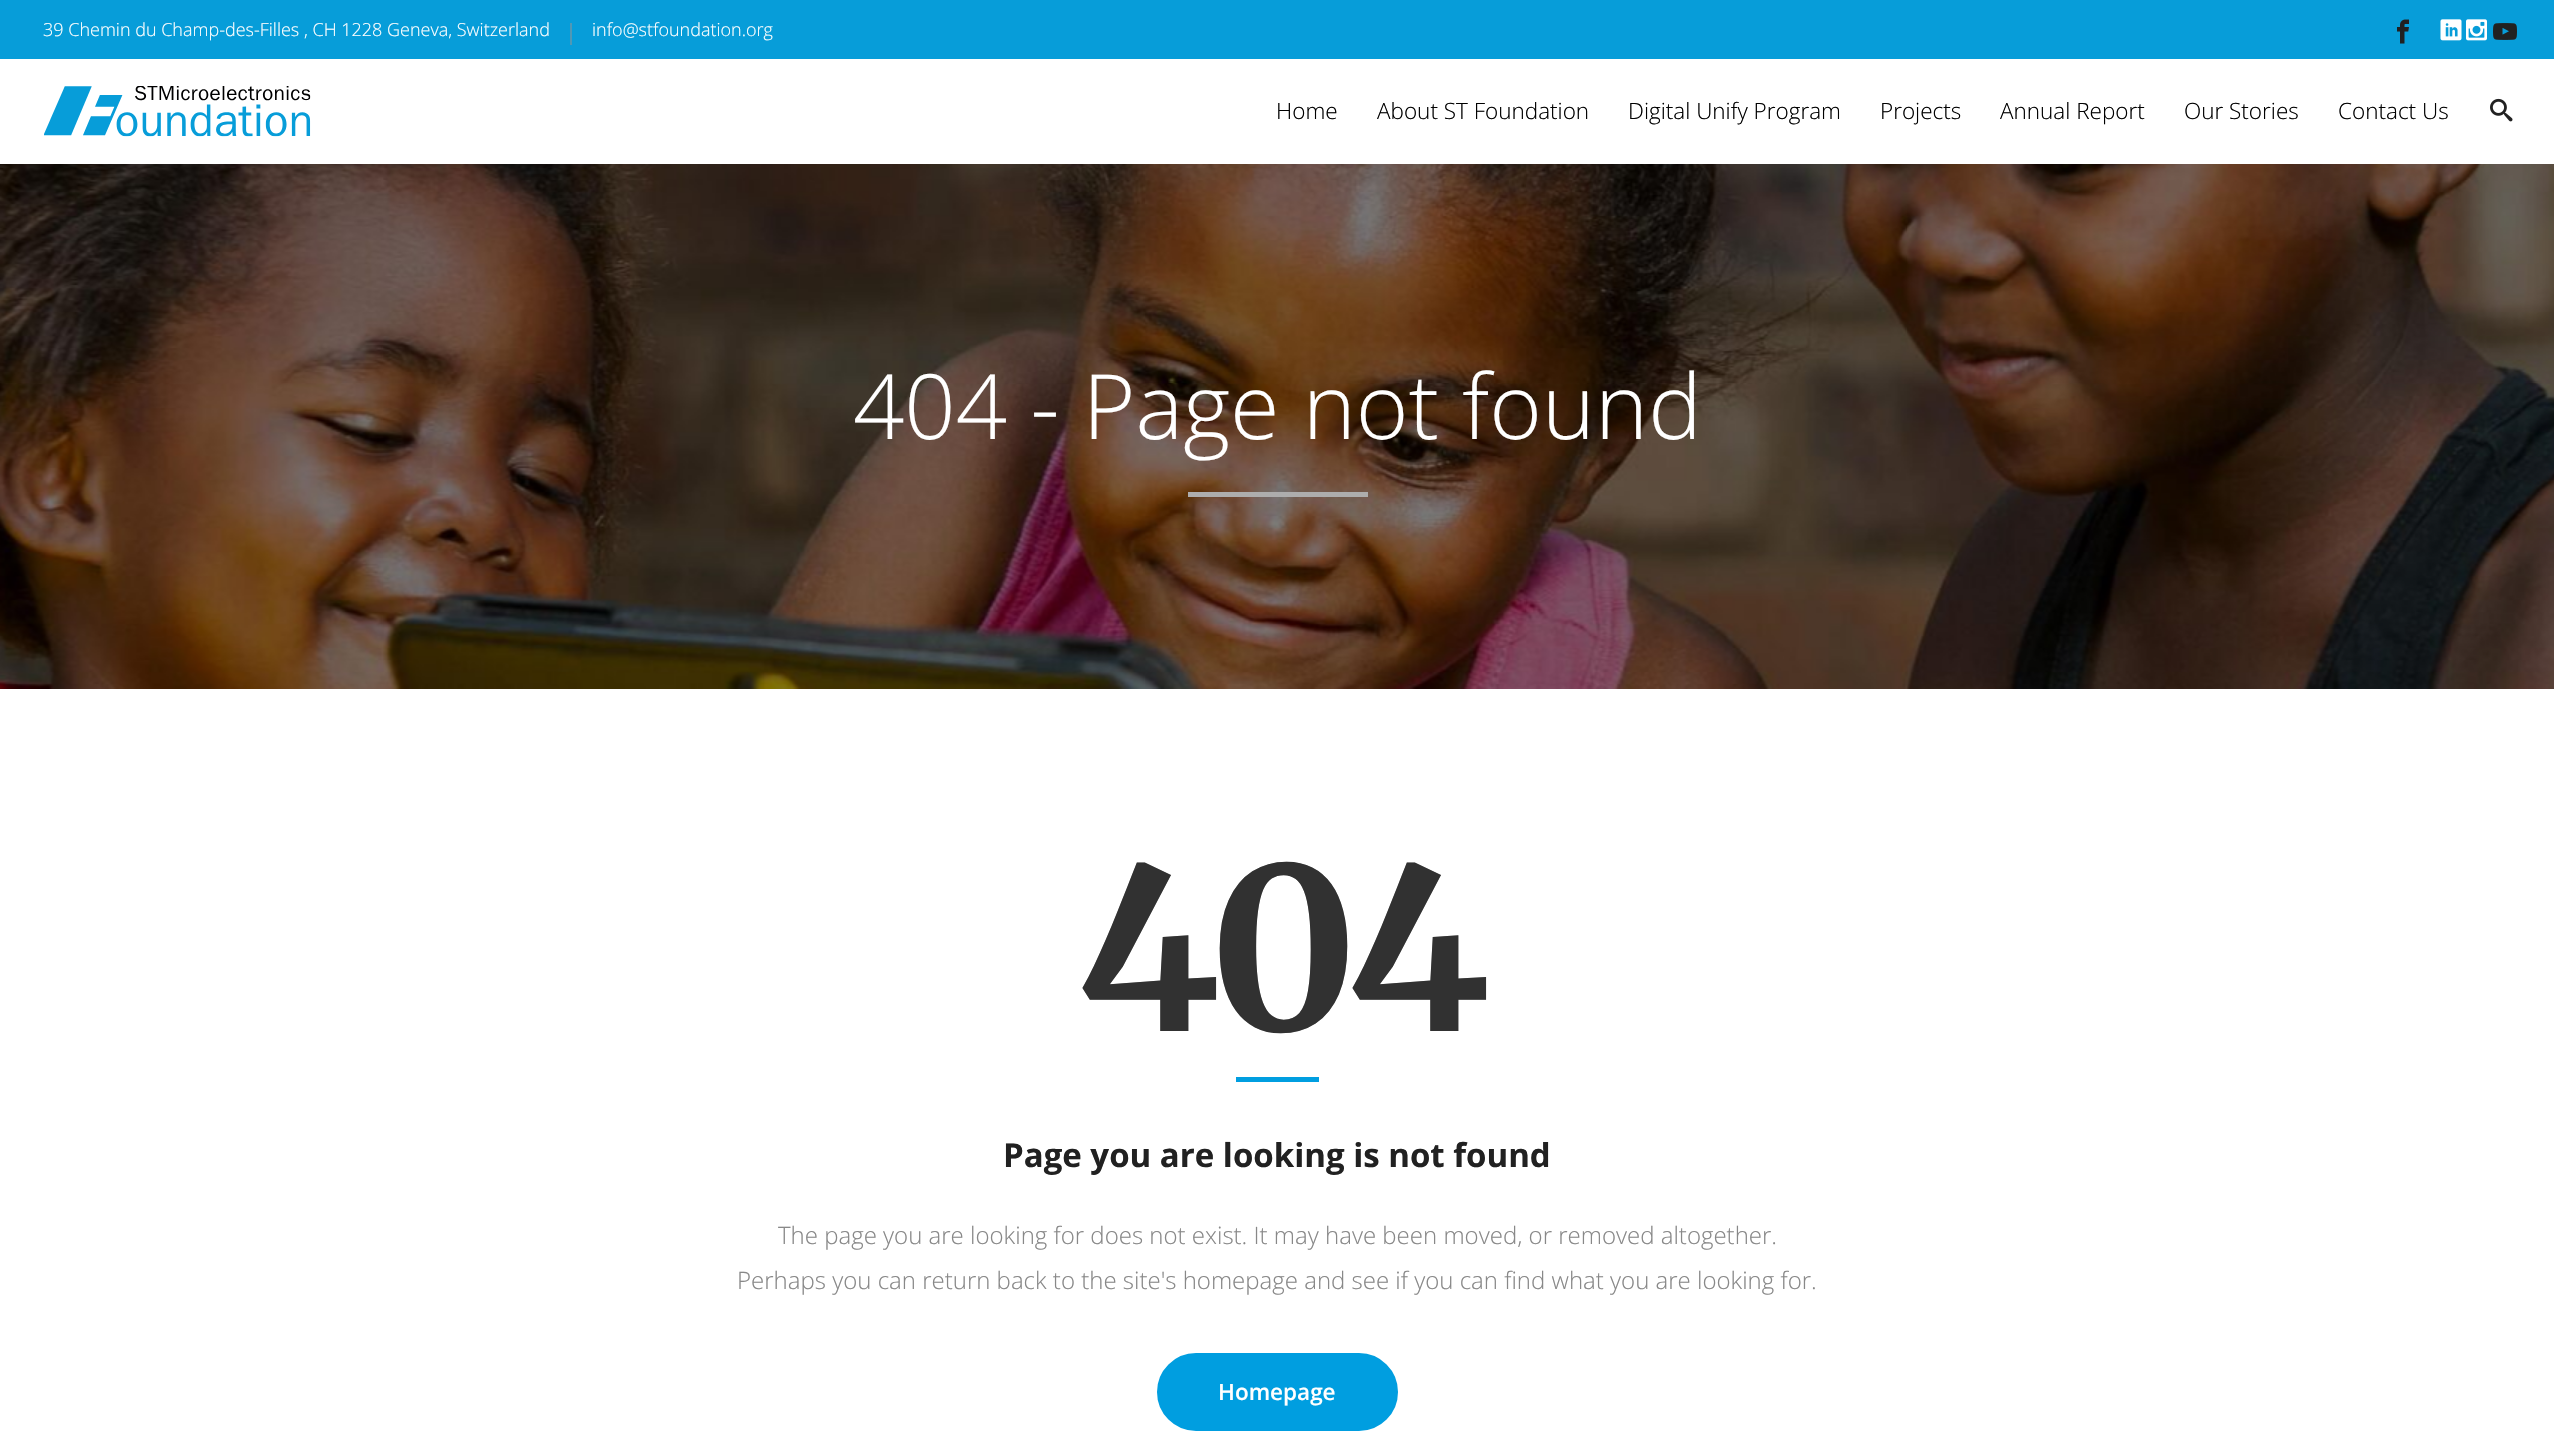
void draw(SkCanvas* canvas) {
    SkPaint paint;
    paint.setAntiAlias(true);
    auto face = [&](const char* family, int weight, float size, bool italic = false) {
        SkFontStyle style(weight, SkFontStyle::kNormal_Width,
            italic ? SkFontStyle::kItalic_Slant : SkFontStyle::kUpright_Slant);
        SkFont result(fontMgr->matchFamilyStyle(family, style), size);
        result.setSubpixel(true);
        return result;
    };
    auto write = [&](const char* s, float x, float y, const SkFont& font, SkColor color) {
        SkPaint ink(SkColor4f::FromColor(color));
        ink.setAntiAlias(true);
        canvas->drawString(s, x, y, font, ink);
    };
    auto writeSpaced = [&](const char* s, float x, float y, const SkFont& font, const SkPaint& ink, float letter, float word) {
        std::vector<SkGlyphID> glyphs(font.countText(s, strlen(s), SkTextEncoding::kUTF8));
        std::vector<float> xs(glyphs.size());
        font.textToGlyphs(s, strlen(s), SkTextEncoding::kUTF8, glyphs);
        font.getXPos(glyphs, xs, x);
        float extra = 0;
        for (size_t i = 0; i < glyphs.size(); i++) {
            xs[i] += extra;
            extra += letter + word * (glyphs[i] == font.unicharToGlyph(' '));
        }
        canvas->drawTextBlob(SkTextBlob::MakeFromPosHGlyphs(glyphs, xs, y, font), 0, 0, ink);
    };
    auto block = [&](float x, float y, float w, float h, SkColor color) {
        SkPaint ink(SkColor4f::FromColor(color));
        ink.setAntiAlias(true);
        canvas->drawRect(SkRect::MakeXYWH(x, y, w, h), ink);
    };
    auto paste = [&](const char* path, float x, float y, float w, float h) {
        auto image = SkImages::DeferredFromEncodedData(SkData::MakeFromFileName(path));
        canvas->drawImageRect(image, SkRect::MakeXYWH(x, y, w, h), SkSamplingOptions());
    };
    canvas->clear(SK_ColorWHITE);
    block(0, 0, 2554, 59, SkColorSetRGB(7, 157, 217));
    auto kFont1 = face("Open Sans", 300, 18);
    write("39 Chemin du Champ-des-Filles , CH 1228 Geneva, Switzerland", 43, 36, kFont1, SK_ColorWHITE);
    block(570, 23, 2, 22, SkColorSetRGB(80, 152, 181));
    write("info@stfoundation.org", 592, 36, kFont1, SK_ColorWHITE);
    paste("pic1.png", 2397, 19, 12, 25);
    paste("pic2.png", 2440, 19, 22, 22);
    paste("pic3.png", 2466, 19, 21, 22);
    paste("pic4.png", 2493, 23, 24, 17);
    paste("pic5.png", 44, 86, 267, 51);
    auto kFont2 = face("Open Sans", 300, 22.5f);
    write("Home", 1276, 119, kFont2, SK_ColorBLACK);
    write("About ST Foundation", 1377, 119, kFont2, SK_ColorBLACK);
    write("Digital Unify Program", 1628, 119, kFont2, SK_ColorBLACK);
    write("Projects", 1880, 119, kFont2, SK_ColorBLACK);
    write("Annual Report", 2000, 119, kFont2, SK_ColorBLACK);
    write("Our Stories", 2184, 119, kFont2, SK_ColorBLACK);
    write("Contact Us", 2338, 119, kFont2, SK_ColorBLACK);
    paste("pic6.png", 2490, 98, 23, 24);
    paste("pic7.png", 0, 164, 2554, 525);
    auto kFont3 = face("Open Sans", 300, 90);
    write("404 - Page not found", 853, 439, kFont3, SK_ColorWHITE);
    block(1188, 492, 180, 5, SkColorSetRGB(173, 173, 173));
    auto kFont4 = face("Merriweather", 700, 225);
    paint.setColor(SkColorSetRGB(49, 49, 49));
    writeSpaced("404", 1077, 1031, kFont4, paint, -11, 0);
    block(1236, 1077, 83, 5, SkColorSetRGB(0, 158, 224));
    auto kFont5 = face("Open Sans", 700, 33);
    write("Page you are looking is not found", 1003, 1167, kFont5, SkColorSetRGB(33, 33, 33));
    auto kFont6 = face("Open Sans", 300, 24);
    write("The page you are looking for does not exist. It may have been moved, or removed altogether.", 778, 1244, kFont6, SkColorSetRGB(136, 136, 136));
    write("Perhaps you can return back to the site's homepage and see if you can find what you are looking for.", 737, 1289, kFont6, SkColorSetRGB(136, 136, 136));
    paint.setColor(SkColorSetRGB(0, 158, 224));
    canvas->drawRoundRect(SkRect::MakeXYWH(1158.5f, 1354.5f, 238, 75), 37.5f, 37.5f, paint);
    paint.setStyle(SkPaint::kStroke_Style);
    paint.setStrokeWidth(3);
    canvas->drawRoundRect(SkRect::MakeXYWH(1158.5f, 1354.5f, 238, 75), 37.5f, 37.5f, paint);
    auto kFont7 = face("Open Sans", 600, 22.5f);
    write("Homepage", 1218, 1400, kFont7, SK_ColorWHITE);
}
